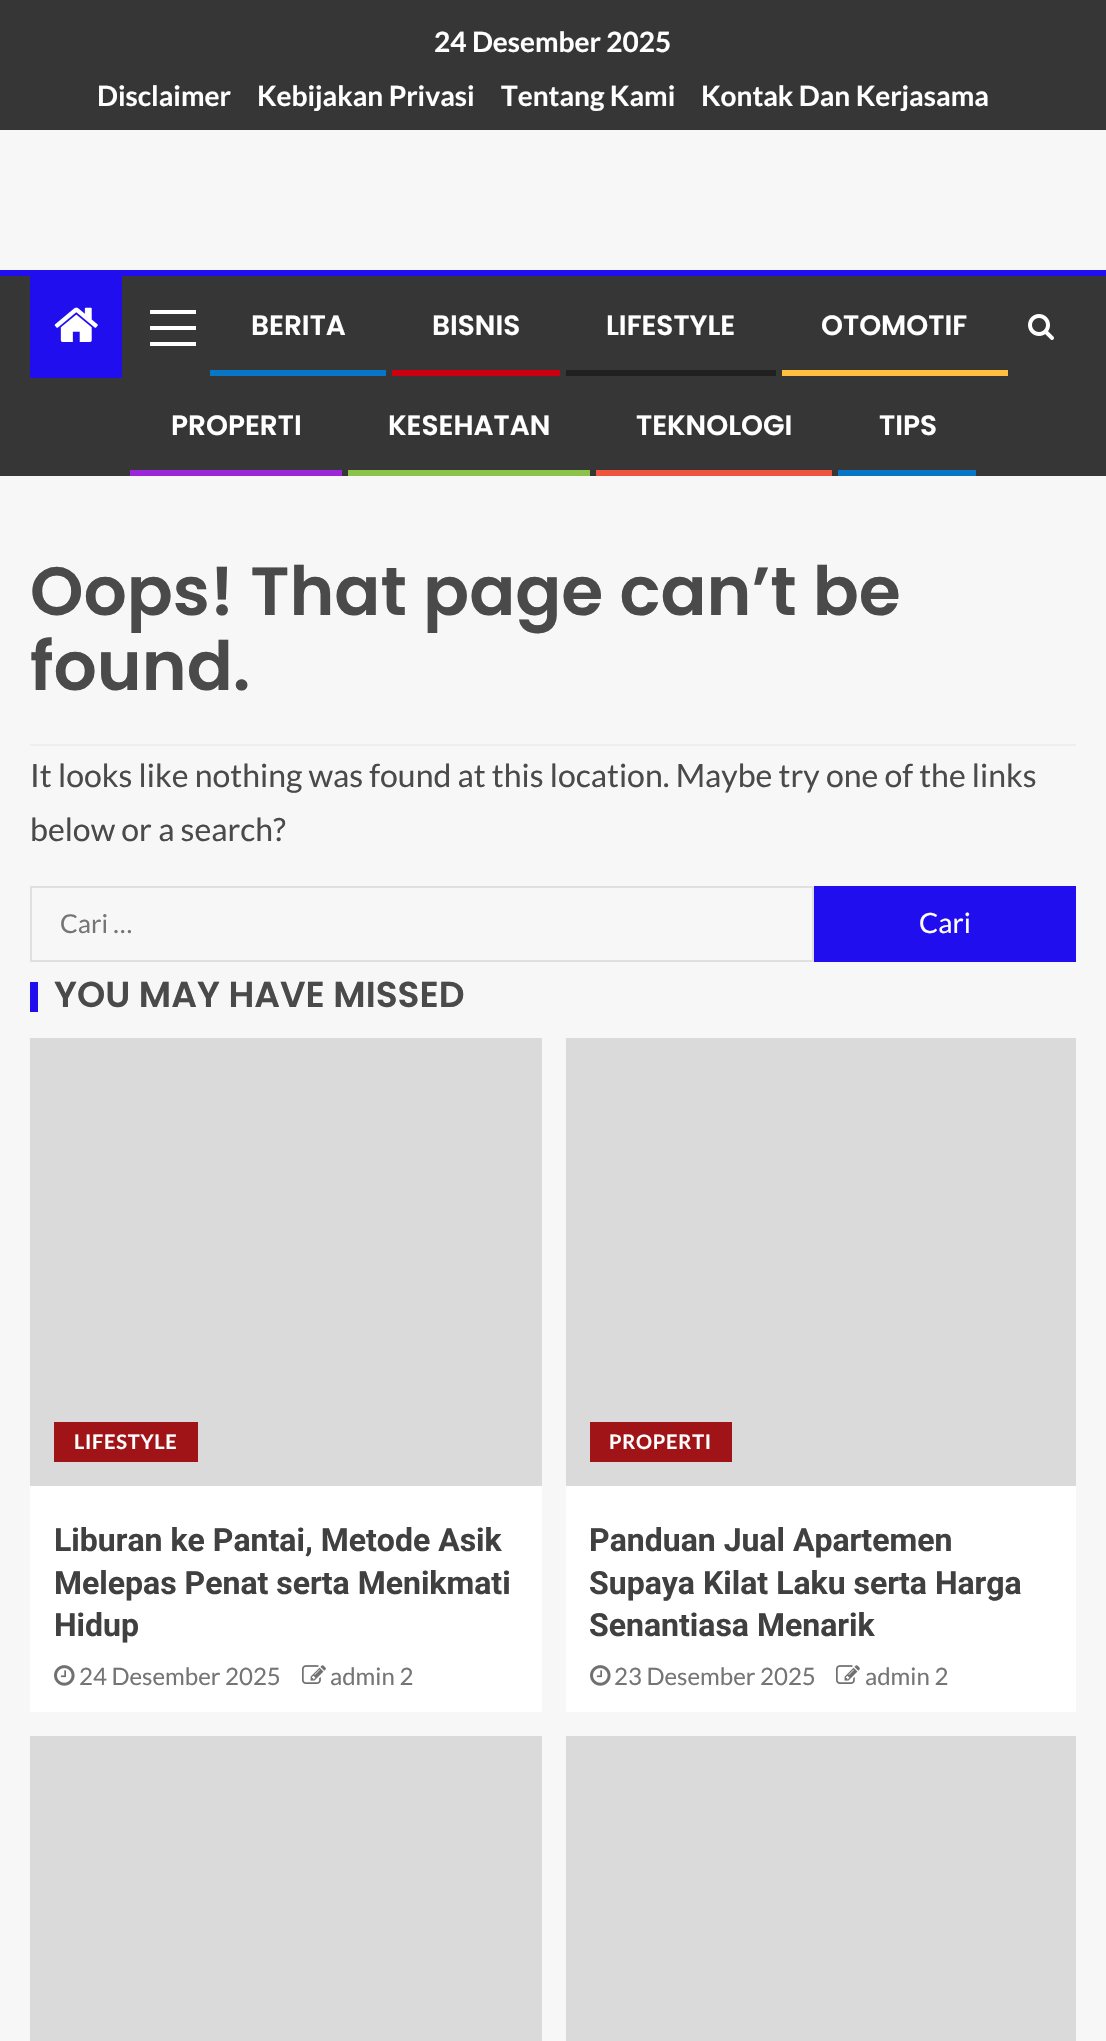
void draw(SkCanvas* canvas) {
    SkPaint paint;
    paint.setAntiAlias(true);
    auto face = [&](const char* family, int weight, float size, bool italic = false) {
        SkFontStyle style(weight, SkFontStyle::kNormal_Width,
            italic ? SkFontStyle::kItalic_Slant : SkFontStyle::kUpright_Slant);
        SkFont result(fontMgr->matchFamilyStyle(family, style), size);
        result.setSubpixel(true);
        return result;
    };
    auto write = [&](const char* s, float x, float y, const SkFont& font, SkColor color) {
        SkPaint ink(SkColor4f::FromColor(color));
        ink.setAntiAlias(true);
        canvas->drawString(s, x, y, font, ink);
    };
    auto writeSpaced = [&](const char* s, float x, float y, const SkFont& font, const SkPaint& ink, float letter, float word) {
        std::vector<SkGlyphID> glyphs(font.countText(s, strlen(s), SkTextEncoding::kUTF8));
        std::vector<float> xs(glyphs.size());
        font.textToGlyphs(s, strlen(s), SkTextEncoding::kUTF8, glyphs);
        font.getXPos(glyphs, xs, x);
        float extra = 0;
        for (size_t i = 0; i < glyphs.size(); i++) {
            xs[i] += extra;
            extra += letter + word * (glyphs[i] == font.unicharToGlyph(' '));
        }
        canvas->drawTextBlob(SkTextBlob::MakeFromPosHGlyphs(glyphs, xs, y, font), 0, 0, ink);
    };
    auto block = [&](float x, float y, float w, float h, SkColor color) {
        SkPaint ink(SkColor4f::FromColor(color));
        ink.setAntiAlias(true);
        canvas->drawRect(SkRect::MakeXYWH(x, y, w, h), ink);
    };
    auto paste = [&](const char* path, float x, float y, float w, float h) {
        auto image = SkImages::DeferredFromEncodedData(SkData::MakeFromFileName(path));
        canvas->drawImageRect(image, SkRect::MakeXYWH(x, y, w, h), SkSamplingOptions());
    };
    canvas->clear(SkColorSetRGB(247, 247, 247));
    block(0, 0, 1106, 130, SkColorSetRGB(54, 54, 54));
    auto kFont1 = face("Lato", 700, 28);
    write("24 Desember 2025", 434, 52, kFont1, SK_ColorWHITE);
    write("Disclaimer", 97, 106, kFont1, SK_ColorWHITE);
    write("Kebijakan Privasi", 257, 106, kFont1, SK_ColorWHITE);
    write("Tentang Kami", 501, 106, kFont1, SK_ColorWHITE);
    write("Kontak Dan Kerjasama", 701, 106, kFont1, SK_ColorWHITE);
    block(0, 276, 1106, 200, SkColorSetRGB(54, 54, 54));
    block(0, 270, 1106, 6, SkColorSetRGB(33, 14, 239));
    block(30, 276, 92, 102, SkColorSetRGB(33, 14, 239));
    paste("pic1.png", 54, 307, 44, 35);
    block(150, 326, 46, 4, SK_ColorWHITE);
    block(150, 310, 46, 4, SK_ColorWHITE);
    block(150, 342, 46, 4, SK_ColorWHITE);
    auto kFont2 = face("Poppins", 600, 28);
    write("BERITA", 251, 335, kFont2, SK_ColorWHITE);
    block(210, 370, 176, 6, SkColorSetRGB(7, 118, 198));
    write("BISNIS", 432, 335, kFont2, SK_ColorWHITE);
    block(392, 370, 168, 6, SkColorSetRGB(204, 0, 16));
    write("LIFESTYLE", 606, 335, kFont2, SK_ColorWHITE);
    block(566, 370, 210, 6, SkColorSetRGB(32, 32, 32));
    write("OTOMOTIF", 821, 335, kFont2, SK_ColorWHITE);
    block(782, 370, 226, 6, SkColorSetRGB(255, 191, 63));
    write("PROPERTI", 171, 435, kFont2, SK_ColorWHITE);
    block(130, 470, 212, 6, SkColorSetRGB(156, 39, 217));
    write("KESEHATAN", 388, 435, kFont2, SK_ColorWHITE);
    block(348, 470, 242, 6, SkColorSetRGB(139, 195, 74));
    write("TEKNOLOGI", 636, 435, kFont2, SK_ColorWHITE);
    block(596, 470, 236, 6, SkColorSetRGB(237, 85, 63));
    write("TIPS", 879, 435, kFont2, SK_ColorWHITE);
    block(838, 470, 138, 6, SkColorSetRGB(7, 118, 198));
    paste("pic2.png", 1028, 314, 26, 26);
    block(30, 744, 1046, 2, SkColorSetRGB(238, 238, 238));
    auto kFont3 = face("Poppins", 600, 68);
    write("Oops! That page can’t be", 30, 615, kFont3, SkColorSetRGB(74, 74, 74));
    write("found.", 30, 690, kFont3, SkColorSetRGB(74, 74, 74));
    auto kFont4 = face("Lato", 400, 32);
    write("It looks like nothing was found at this location. Maybe try one of the links", 30, 787, kFont4, SkColorSetRGB(74, 74, 74));
    write("below or a search?", 30, 841, kFont4, SkColorSetRGB(74, 74, 74));
    paint.setStyle(SkPaint::kStroke_Style);
    paint.setStrokeWidth(2);
    paint.setColor(SkColorSetRGB(224, 224, 224));
    canvas->drawRect(SkRect::MakeXYWH(31, 887, 782, 74), paint);
    auto kFont5 = face("Lato", 400, 26);
    write("Cari …", 60, 933, kFont5, SkColorSetRGB(117, 117, 117));
    block(814, 886, 262, 76, SkColorSetRGB(33, 14, 239));
    auto kFont6 = face("Lato", 400, 28);
    write("Cari", 919, 933, kFont6, SK_ColorWHITE);
    block(30, 982, 8, 30, SkColorSetRGB(33, 14, 239));
    auto kFont7 = face("Poppins", 600, 36);
    write("YOU MAY HAVE MISSED", 54, 1007, kFont7, SkColorSetRGB(74, 74, 74));
    block(30, 1038, 512, 448, SkColorSetRGB(218, 218, 218));
    block(54, 1422, 144, 40, SkColorSetRGB(160, 19, 23));
    auto kFont8 = face("Lato", 700, 20);
    paint.setStyle(SkPaint::kFill_Style);
    paint.setColor(SK_ColorWHITE);
    writeSpaced("LIFESTYLE", 74, 1449, kFont8, paint, 0.75f, 0);
    block(30, 1486, 512, 226, SK_ColorWHITE);
    auto kFont9 = face("Roboto", 700, 32);
    write("Liburan ke Pantai, Metode Asik", 54, 1551, kFont9, SkColorSetRGB(64, 64, 64));
    write("Melepas Penat serta Menikmati", 54, 1594, kFont9, SkColorSetRGB(64, 64, 64));
    write("Hidup", 54, 1636, kFont9, SkColorSetRGB(64, 64, 64));
    paste("pic3.png", 54, 1665, 21, 21);
    auto kFont10 = face("Lato", 400, 24);
    write("24 Desember 2025", 79, 1685, kFont10, SkColorSetRGB(117, 117, 117));
    paste("pic4.png", 302, 1665, 24, 19);
    write("admin 2", 330, 1685, kFont10, SkColorSetRGB(117, 117, 117));
    block(566, 1038, 510, 448, SkColorSetRGB(218, 218, 218));
    block(590, 1422, 142, 40, SkColorSetRGB(160, 19, 23));
    writeSpaced("PROPERTI", 609, 1449, kFont8, paint, 0.75f, 0);
    block(566, 1486, 510, 226, SK_ColorWHITE);
    write("Panduan Jual Apartemen", 589, 1551, kFont9, SkColorSetRGB(64, 64, 64));
    write("Supaya Kilat Laku serta Harga", 589, 1594, kFont9, SkColorSetRGB(64, 64, 64));
    write("Senantiasa Menarik", 589, 1636, kFont9, SkColorSetRGB(64, 64, 64));
    paste("pic3.png", 590, 1665, 21, 21);
    write("23 Desember 2025", 614, 1685, kFont10, SkColorSetRGB(117, 117, 117));
    paste("pic4.png", 836, 1665, 24, 19);
    write("admin 2", 865, 1685, kFont10, SkColorSetRGB(117, 117, 117));
    block(30, 1736, 512, 305, SkColorSetRGB(218, 218, 218));
    block(566, 1736, 510, 305, SkColorSetRGB(218, 218, 218));
}
